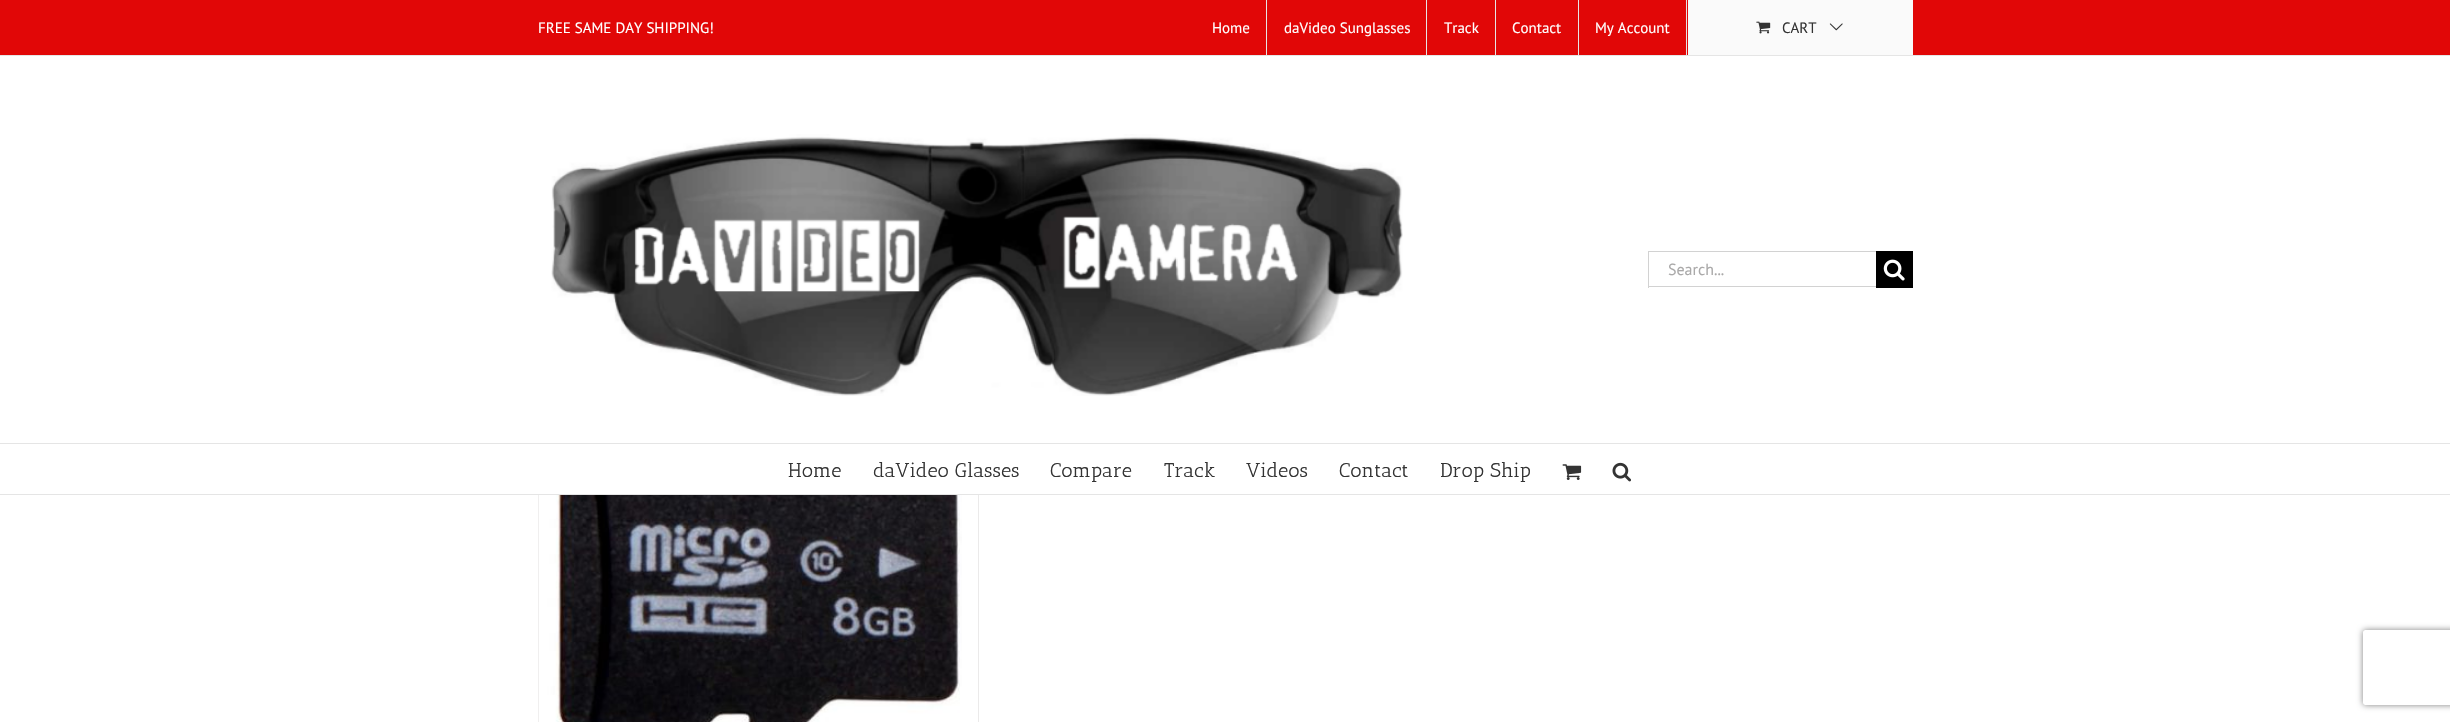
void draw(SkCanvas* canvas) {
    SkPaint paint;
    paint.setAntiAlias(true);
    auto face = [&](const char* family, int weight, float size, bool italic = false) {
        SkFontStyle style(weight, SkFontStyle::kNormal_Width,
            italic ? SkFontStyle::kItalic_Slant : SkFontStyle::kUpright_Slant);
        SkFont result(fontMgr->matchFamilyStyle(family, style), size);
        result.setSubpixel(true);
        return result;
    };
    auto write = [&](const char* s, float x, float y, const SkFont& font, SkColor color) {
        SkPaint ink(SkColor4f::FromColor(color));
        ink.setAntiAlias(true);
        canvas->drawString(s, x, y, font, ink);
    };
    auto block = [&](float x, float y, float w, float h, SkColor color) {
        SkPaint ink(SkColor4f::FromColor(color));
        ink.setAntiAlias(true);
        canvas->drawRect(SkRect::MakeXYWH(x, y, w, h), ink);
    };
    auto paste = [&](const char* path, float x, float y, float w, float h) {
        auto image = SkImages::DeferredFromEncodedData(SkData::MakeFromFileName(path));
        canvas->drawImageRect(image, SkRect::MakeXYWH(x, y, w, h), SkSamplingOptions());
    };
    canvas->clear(SK_ColorWHITE);
    block(0, 0, 2450, 55, SkColorSetRGB(225, 7, 7));
    block(0, 55, 2450, 1, SkColorSetRGB(229, 229, 229));
    auto kFont1 = face("PT Sans", 400, 15);
    write("FREE SAME DAY SHIPPING!", 538, 33, kFont1, SK_ColorWHITE);
    write("Home", 1212, 33, kFont1, SK_ColorWHITE);
    block(1266, 0, 1, 55, SkColorSetRGB(229, 229, 229));
    write("daVideo Sunglasses", 1284, 33, kFont1, SK_ColorWHITE);
    block(1426, 0, 1, 55, SkColorSetRGB(229, 229, 229));
    write("Track", 1444, 33, kFont1, SK_ColorWHITE);
    block(1495, 0, 1, 55, SkColorSetRGB(229, 229, 229));
    write("Contact", 1512, 33, kFont1, SK_ColorWHITE);
    block(1578, 0, 1, 55, SkColorSetRGB(229, 229, 229));
    write("My Account", 1595, 33, kFont1, SK_ColorWHITE);
    block(1686, 0, 1, 55, SkColorSetRGB(229, 229, 229));
    block(1688, 0, 225, 55, SkColorSetRGB(250, 250, 250));
    paste("pic1.png", 1756, 21, 15, 13);
    write("CART", 1782, 33, kFont1, SkColorSetRGB(51, 51, 51));
    paste("pic2.png", 1829, 23, 14, 8);
    block(0, 443, 2450, 1, SkColorSetRGB(229, 229, 229));
    paste("pic3.png", 551, 134, 852, 262);
    block(1648, 251, 228, 1, SkColorSetRGB(210, 210, 210));
    block(1648, 286, 228, 1, SkColorSetRGB(210, 210, 210));
    block(1648, 251, 1, 37, SkColorSetRGB(210, 210, 210));
    auto kFont2 = face("PT Sans", 400, 16);
    write("Search...", 1668, 275, kFont2, SkColorSetRGB(170, 169, 169));
    block(1876, 251, 37, 37, SK_ColorBLACK);
    paste("pic4.png", 1883, 259, 22, 22);
    block(0, 494, 2450, 1, SkColorSetRGB(229, 229, 229));
    auto kFont3 = face("Antic Slab", 400, 20);
    write("Home", 788, 477, kFont3, SkColorSetRGB(51, 51, 51));
    write("daVideo Glasses", 873, 477, kFont3, SkColorSetRGB(51, 51, 51));
    write("Compare", 1050, 477, kFont3, SkColorSetRGB(51, 51, 51));
    write("Track", 1164, 477, kFont3, SkColorSetRGB(51, 51, 51));
    write("Videos", 1246, 477, kFont3, SkColorSetRGB(51, 51, 51));
    write("Contact", 1339, 477, kFont3, SkColorSetRGB(51, 51, 51));
    write("Drop Ship", 1440, 477, kFont3, SkColorSetRGB(51, 51, 51));
    paste("pic5.png", 1562, 464, 20, 16);
    paste("pic6.png", 1612, 462, 19, 20);
    block(978, 495, 1, 227, SkColorSetRGB(235, 234, 234));
    block(538, 495, 1, 227, SkColorSetRGB(235, 234, 234));
    paste("pic7.png", 538, 495, 424, 227);
    canvas->save();
    canvas->clipPath(SkPathBuilder(SkPathFillType::kEvenOdd).moveTo(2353, 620).lineTo(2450, 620).lineTo(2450, 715).lineTo(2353, 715).close().moveTo(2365.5f, 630).lineTo(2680.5f, 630).cubicTo(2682, 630, 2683, 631, 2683, 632.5f).lineTo(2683, 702.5f).cubicTo(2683, 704, 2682, 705, 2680.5f, 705).lineTo(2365.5f, 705).cubicTo(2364, 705, 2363, 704, 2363, 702.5f).lineTo(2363, 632.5f).cubicTo(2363, 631, 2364, 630, 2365.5f, 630).close().detach(), true);
    paint.setColor(SkColorSetRGB(128, 128, 128));
    paint.setMaskFilter(SkMaskFilter::MakeBlur(kNormal_SkBlurStyle, 3));
    canvas->drawRoundRect(SkRect::MakeXYWH(2363, 630, 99, 75), 2.5f, 2.5f, paint);
    paint.setMaskFilter(nullptr);
    canvas->restore();
}
